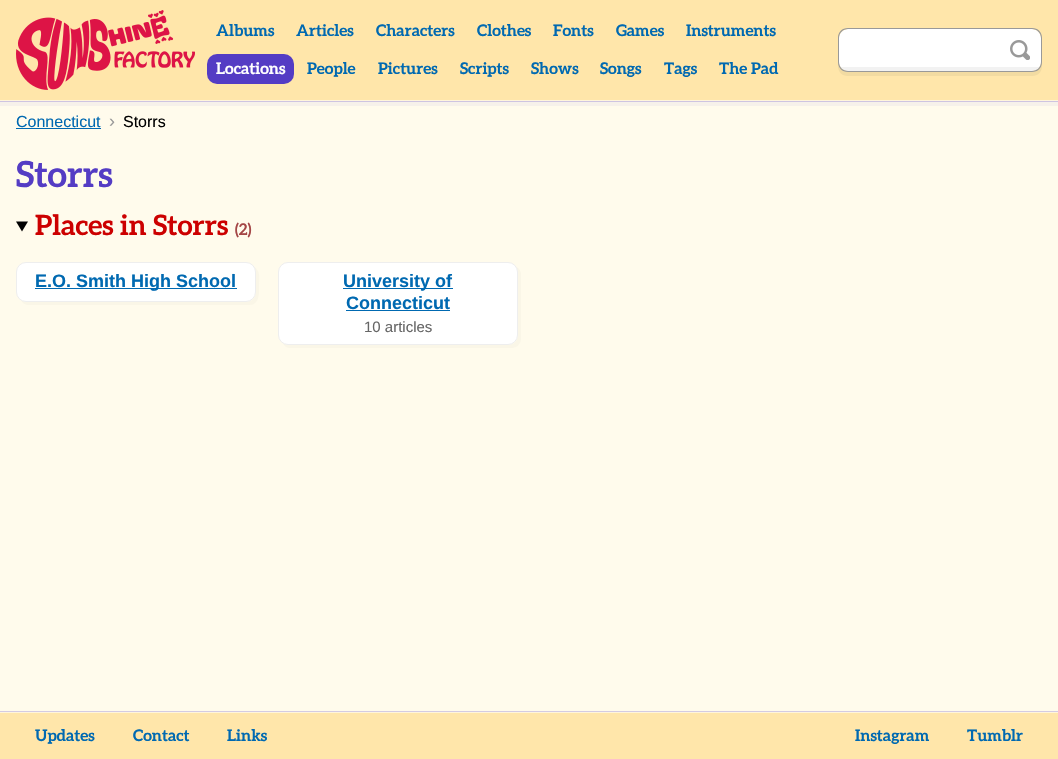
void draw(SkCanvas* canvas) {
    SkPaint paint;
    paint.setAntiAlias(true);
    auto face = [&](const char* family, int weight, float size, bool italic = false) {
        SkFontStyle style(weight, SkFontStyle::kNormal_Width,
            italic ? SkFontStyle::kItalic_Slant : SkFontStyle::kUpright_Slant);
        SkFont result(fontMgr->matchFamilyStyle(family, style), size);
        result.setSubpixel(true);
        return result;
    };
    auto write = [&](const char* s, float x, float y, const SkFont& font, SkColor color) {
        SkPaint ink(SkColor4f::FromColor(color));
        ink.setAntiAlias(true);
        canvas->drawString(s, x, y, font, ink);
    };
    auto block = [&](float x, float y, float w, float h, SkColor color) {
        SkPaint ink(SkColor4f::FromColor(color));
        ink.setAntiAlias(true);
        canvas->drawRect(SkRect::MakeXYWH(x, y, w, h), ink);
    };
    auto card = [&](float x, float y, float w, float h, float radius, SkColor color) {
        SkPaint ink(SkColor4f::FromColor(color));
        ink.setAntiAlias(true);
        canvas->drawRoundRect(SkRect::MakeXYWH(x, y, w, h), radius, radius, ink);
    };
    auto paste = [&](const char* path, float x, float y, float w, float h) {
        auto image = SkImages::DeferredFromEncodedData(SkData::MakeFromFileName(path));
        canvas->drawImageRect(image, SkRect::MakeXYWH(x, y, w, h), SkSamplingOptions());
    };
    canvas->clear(SkColorSetRGB(255, 251, 236));
    paint.setStyle(SkPaint::kStroke_Style);
    paint.setStrokeWidth(6);
    paint.setColor(SkColorSetRGB(246, 241, 234));
    canvas->drawRect(SkRect::MakeXYWH(-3, -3, 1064, 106), paint);
    paint.setStrokeWidth(2);
    paint.setColor(SkColorSetRGB(206, 196, 225));
    canvas->drawRect(SkRect::MakeXYWH(-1, -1, 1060, 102), paint);
    paint.setStrokeWidth(1);
    paint.setColor(SkColorSetRGB(255, 245, 220));
    canvas->drawRect(SkRect::MakeXYWH(-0.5f, -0.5f, 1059, 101), paint);
    block(0, 0, 1058, 100, SkColorSetRGB(255, 230, 170));
    paste("pic1.png", 16, 10, 179, 80);
    auto kFont1 = face("Aleo", 700, 16);
    write("Albums", 216, 36, kFont1, SkColorSetRGB(0, 105, 177));
    write("Articles", 296, 36, kFont1, SkColorSetRGB(0, 105, 177));
    write("Characters", 376, 36, kFont1, SkColorSetRGB(0, 105, 177));
    write("Clothes", 477, 36, kFont1, SkColorSetRGB(0, 105, 177));
    write("Fonts", 553, 36, kFont1, SkColorSetRGB(0, 105, 177));
    write("Games", 616, 36, kFont1, SkColorSetRGB(0, 105, 177));
    write("Instruments", 686, 36, kFont1, SkColorSetRGB(0, 105, 177));
    card(207, 54, 87, 30, 10, SkColorSetRGB(84, 60, 196));
    write("Locations", 216, 74, kFont1, SK_ColorWHITE);
    write("People", 307, 74, kFont1, SkColorSetRGB(0, 105, 177));
    write("Pictures", 378, 74, kFont1, SkColorSetRGB(0, 105, 177));
    write("Scripts", 460, 74, kFont1, SkColorSetRGB(0, 105, 177));
    write("Shows", 531, 74, kFont1, SkColorSetRGB(0, 105, 177));
    write("Songs", 600, 74, kFont1, SkColorSetRGB(0, 105, 177));
    write("Tags", 664, 74, kFont1, SkColorSetRGB(0, 105, 177));
    write("The Pad", 719, 74, kFont1, SkColorSetRGB(0, 105, 177));
    paint.setStyle(SkPaint::kFill_Style);
    paint.setColor(SkColorSetRGB(242, 219, 162));
    canvas->drawPath(SkPathBuilder().moveTo(838, 62).lineTo(838, 66).cubicTo(838, 72, 842, 76, 848, 76).lineTo(1032, 76).cubicTo(1038, 76, 1042, 72, 1042, 66).lineTo(1042, 62).cubicTo(1042, 68, 1038, 72, 1032, 72).lineTo(848, 72).cubicTo(842, 72, 838, 68, 838, 62).close().detach(), paint);
    canvas->save();
    canvas->clipPath(SkPathBuilder().moveTo(848, 29).lineTo(998, 29).lineTo(998, 71).lineTo(848, 71).cubicTo(843, 71, 839, 67, 839, 62).lineTo(839, 38).cubicTo(839, 33, 843, 29, 848, 29).close().detach(), true);
    block(839, 67, 159, 4, SkColorSetRGB(242, 242, 242));
    paint.setColor(SK_ColorWHITE);
    canvas->drawPath(SkPathBuilder().moveTo(848, 29).lineTo(998, 29).lineTo(998, 67).lineTo(839, 67).lineTo(839, 38).cubicTo(839, 33, 843, 29, 848, 29).close().detach(), paint);
    canvas->restore();
    paint.setColor(SkColorSetRGB(153, 153, 153));
    canvas->drawPath(SkPathBuilder(SkPathFillType::kEvenOdd).moveTo(848, 28).lineTo(998, 28).lineTo(998, 72).lineTo(848, 72).cubicTo(842, 72, 838, 68, 838, 62).lineTo(838, 38).cubicTo(838, 32, 842, 28, 848, 28).close().moveTo(848, 29).lineTo(998, 29).lineTo(998, 71).lineTo(848, 71).cubicTo(843, 71, 839, 67, 839, 62).lineTo(839, 38).cubicTo(839, 33, 843, 29, 848, 29).close().detach(), paint);
    canvas->save();
    canvas->clipPath(SkPathBuilder().moveTo(998, 29).lineTo(1032, 29).cubicTo(1037, 29, 1041, 33, 1041, 38).lineTo(1041, 62).cubicTo(1041, 67, 1037, 71, 1032, 71).lineTo(998, 71).close().detach(), true);
    block(998, 67, 43, 4, SkColorSetRGB(242, 242, 242));
    paint.setColor(SK_ColorWHITE);
    canvas->drawPath(SkPathBuilder().moveTo(998, 29).lineTo(1032, 29).cubicTo(1037, 29, 1041, 33, 1041, 38).lineTo(1041, 67).lineTo(998, 67).close().detach(), paint);
    canvas->restore();
    paint.setColor(SkColorSetRGB(153, 153, 153));
    canvas->drawPath(SkPathBuilder(SkPathFillType::kEvenOdd).moveTo(998, 28).lineTo(1032, 28).cubicTo(1038, 28, 1042, 32, 1042, 38).lineTo(1042, 62).cubicTo(1042, 68, 1038, 72, 1032, 72).lineTo(998, 72).close().moveTo(998, 29).lineTo(1032, 29).cubicTo(1037, 29, 1041, 33, 1041, 38).lineTo(1041, 62).cubicTo(1041, 67, 1037, 71, 1032, 71).lineTo(998, 71).close().detach(), paint);
    paste("pic2.png", 1010, 40, 20, 20);
    auto kFont2 = face("Liberation Sans", 400, 16);
    write("Connecticut", 16, 127, kFont2, SkColorSetRGB(0, 105, 177));
    block(16, 128, 85, 1, SkColorSetRGB(0, 105, 177));
    auto kFont3 = face("Liberation Sans", 400, 18);
    write("›", 109, 127, kFont3, SkColorSetRGB(153, 153, 153));
    write("Storrs", 123, 127, kFont2, SK_ColorBLACK);
    auto kFont4 = face("Aleo", 700, 36);
    write("Storrs", 16, 187, kFont4, SkColorSetRGB(84, 60, 196));
    paint.setColor(SK_ColorBLACK);
    canvas->drawPath(SkPathBuilder().moveTo(16, 221.5f).lineTo(28, 221.5f).lineTo(22, 231.5f).close().detach(), paint);
    auto kFont5 = face("Aleo", 700, 28);
    write("Places in Storrs", 35, 235, kFont5, SkColorSetRGB(204, 0, 0));
    write("(2)", 235, 235, kFont1, SkColorSetRGB(164, 70, 70));
    paint.setColor(SkColorSetRGB(250, 246, 231));
    canvas->drawPath(SkPathBuilder().moveTo(21, 300).cubicTo(22, 303, 26, 305, 29, 305).lineTo(249, 305).cubicTo(260, 305, 259, 293, 259, 285).cubicTo(259, 279, 261, 271, 254, 267).cubicTo(255, 268, 256, 270, 256, 272).lineTo(256, 292).cubicTo(256, 298, 252, 302, 246, 302).lineTo(26, 302).cubicTo(24, 302, 22, 301, 21, 300).close().detach(), paint);
    paint.setColor(SK_ColorWHITE);
    canvas->drawRoundRect(SkRect::MakeXYWH(16.5f, 262.5f, 239, 39), 9.5f, 9.5f, paint);
    paint.setStyle(SkPaint::kStroke_Style);
    paint.setColor(SkColorSetRGB(238, 238, 238));
    canvas->drawRoundRect(SkRect::MakeXYWH(16.5f, 262.5f, 239, 39), 9.5f, 9.5f, paint);
    block(35, 288, 202, 1, SkColorSetRGB(0, 105, 177));
    auto kFont6 = face("Liberation Sans", 700, 18);
    write("E.O. Smith High School", 35, 287, kFont6, SkColorSetRGB(0, 105, 177));
    paint.setStyle(SkPaint::kFill_Style);
    paint.setColor(SkColorSetRGB(250, 246, 231));
    canvas->drawPath(SkPathBuilder().moveTo(283, 343).cubicTo(284, 346, 287, 348, 291, 348).lineTo(511, 348).cubicTo(517, 348, 521, 344, 521, 338).lineTo(521, 275).cubicTo(521, 271, 519, 268, 516, 267).cubicTo(517, 268, 518, 270, 518, 272).lineTo(518, 335).cubicTo(518, 341, 514, 345, 508, 345).lineTo(288, 345).cubicTo(286, 345, 284, 344, 283, 343).close().detach(), paint);
    paint.setColor(SK_ColorWHITE);
    canvas->drawRoundRect(SkRect::MakeXYWH(278.5f, 262.5f, 239, 82), 9.5f, 9.5f, paint);
    paint.setStyle(SkPaint::kStroke_Style);
    paint.setColor(SkColorSetRGB(238, 238, 238));
    canvas->drawRoundRect(SkRect::MakeXYWH(278.5f, 262.5f, 239, 82), 9.5f, 9.5f, paint);
    block(343, 288, 110, 1, SkColorSetRGB(0, 105, 177));
    write("University of", 343, 287, kFont6, SkColorSetRGB(0, 105, 177));
    write("Connecticut", 346, 309, kFont6, SkColorSetRGB(0, 105, 177));
    block(346, 310, 104, 1, SkColorSetRGB(0, 105, 177));
    auto kFont7 = face("Liberation Sans", 400, 15);
    write("10 articles", 364, 332, kFont7, SkColorSetRGB(102, 102, 102));
    paint.setStrokeWidth(2);
    paint.setColor(SkColorSetRGB(212, 203, 226));
    canvas->drawRect(SkRect::MakeXYWH(-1, 712, 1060, 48), paint);
    paint.setStrokeWidth(1);
    paint.setColor(SkColorSetRGB(255, 245, 220));
    canvas->drawRect(SkRect::MakeXYWH(-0.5f, 712.5f, 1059, 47), paint);
    block(0, 713, 1058, 46, SkColorSetRGB(255, 230, 170));
    write("Updates", 35, 741, kFont1, SkColorSetRGB(0, 105, 177));
    write("Contact", 133, 741, kFont1, SkColorSetRGB(0, 105, 177));
    write("Links", 227, 741, kFont1, SkColorSetRGB(0, 105, 177));
    write("Instagram", 855, 741, kFont1, SkColorSetRGB(0, 105, 177));
    write("Tumblr", 967, 741, kFont1, SkColorSetRGB(0, 105, 177));
}
